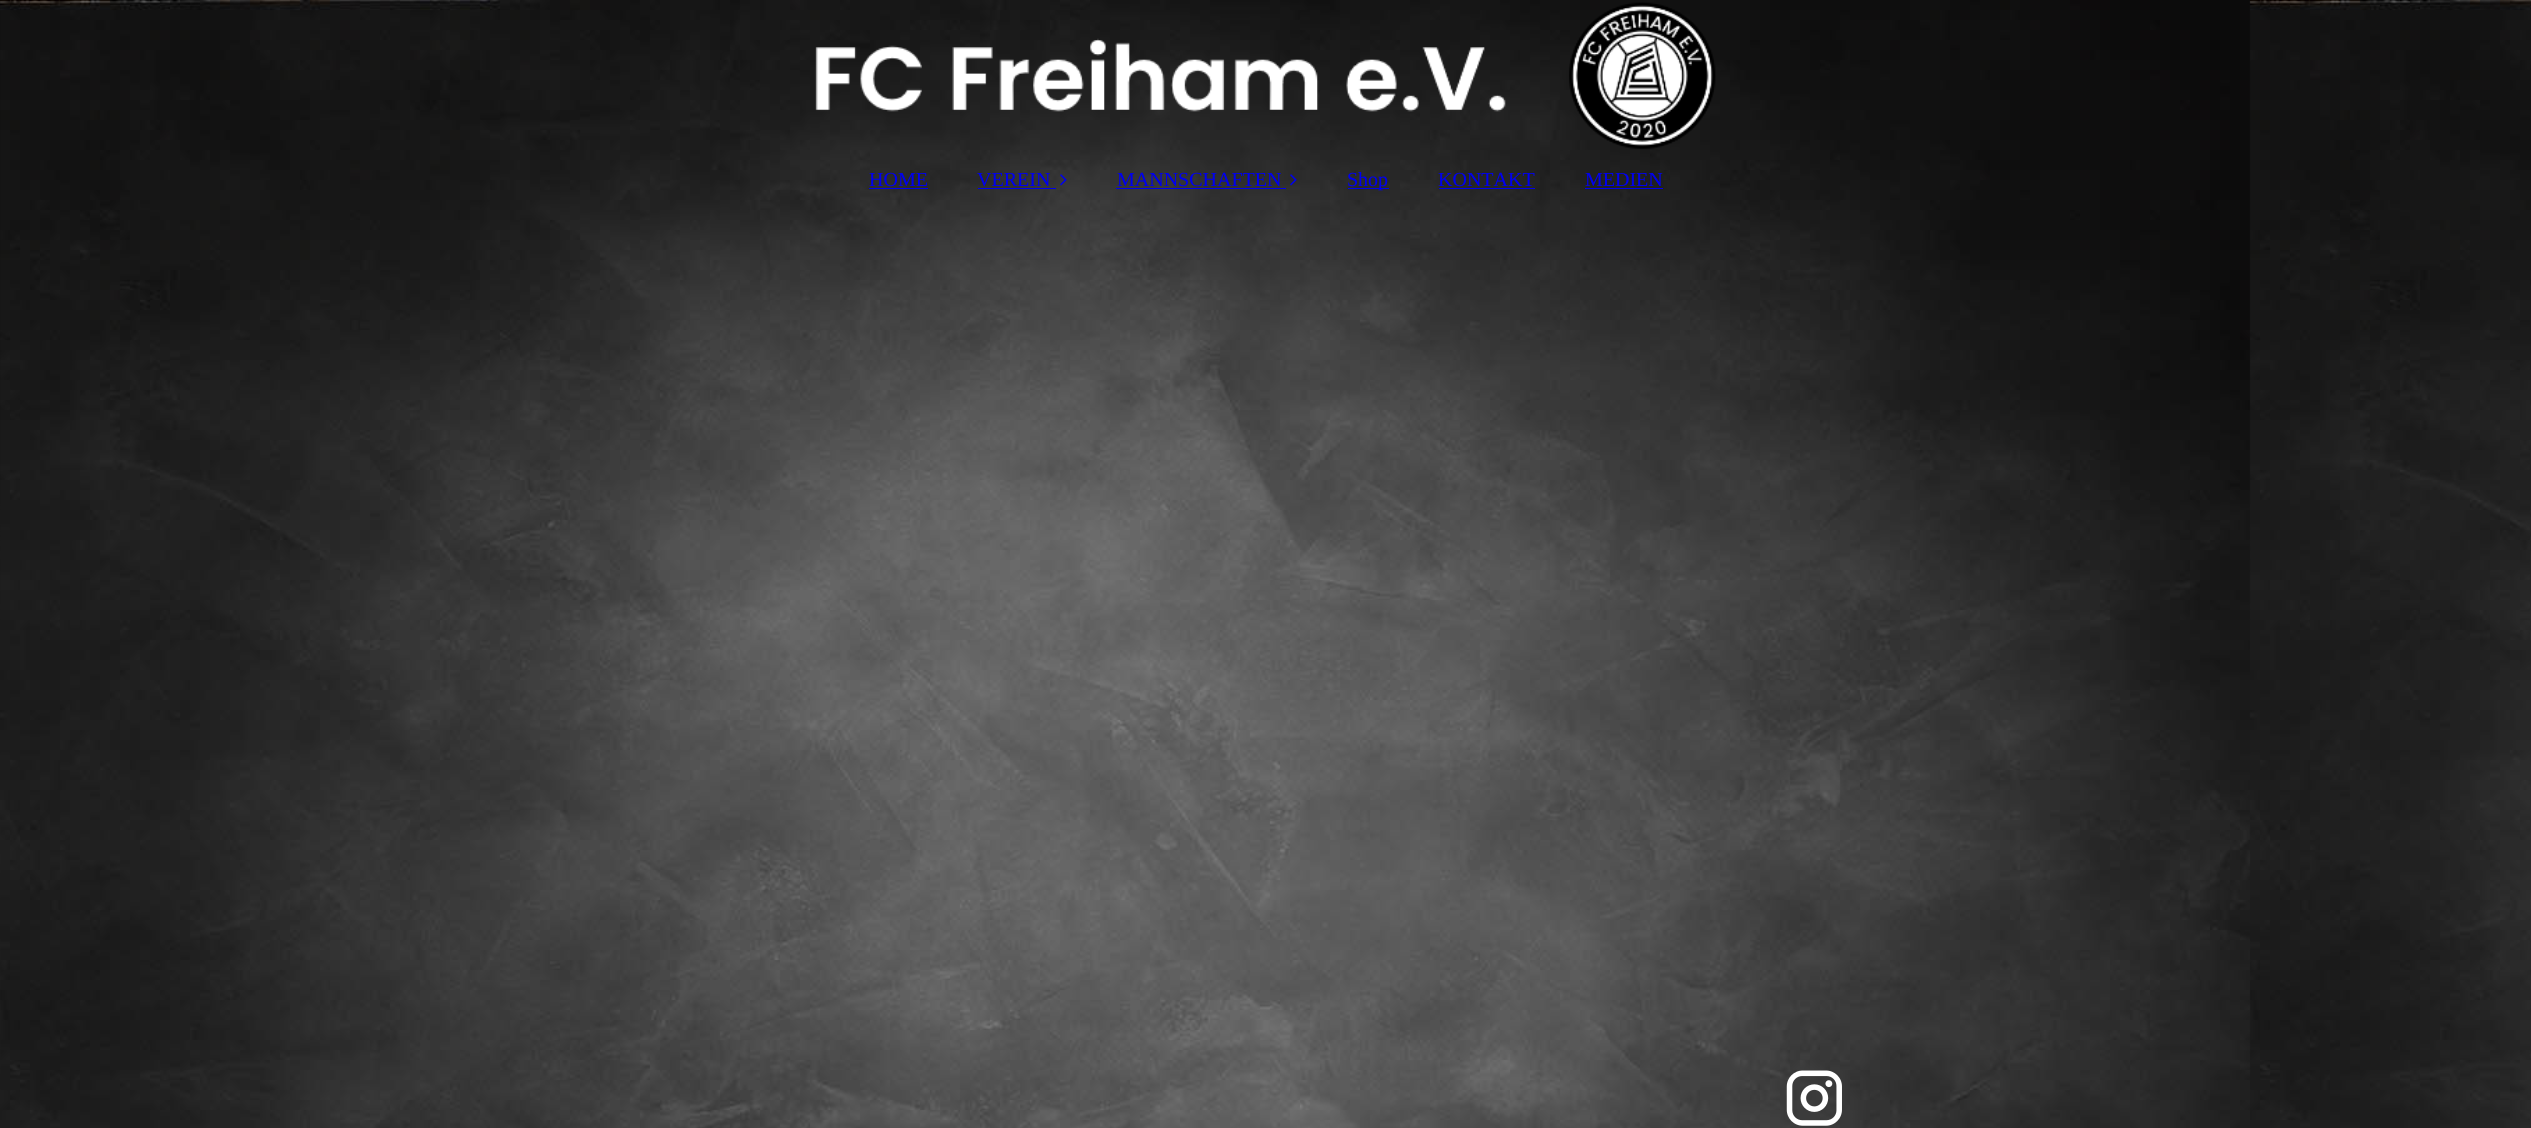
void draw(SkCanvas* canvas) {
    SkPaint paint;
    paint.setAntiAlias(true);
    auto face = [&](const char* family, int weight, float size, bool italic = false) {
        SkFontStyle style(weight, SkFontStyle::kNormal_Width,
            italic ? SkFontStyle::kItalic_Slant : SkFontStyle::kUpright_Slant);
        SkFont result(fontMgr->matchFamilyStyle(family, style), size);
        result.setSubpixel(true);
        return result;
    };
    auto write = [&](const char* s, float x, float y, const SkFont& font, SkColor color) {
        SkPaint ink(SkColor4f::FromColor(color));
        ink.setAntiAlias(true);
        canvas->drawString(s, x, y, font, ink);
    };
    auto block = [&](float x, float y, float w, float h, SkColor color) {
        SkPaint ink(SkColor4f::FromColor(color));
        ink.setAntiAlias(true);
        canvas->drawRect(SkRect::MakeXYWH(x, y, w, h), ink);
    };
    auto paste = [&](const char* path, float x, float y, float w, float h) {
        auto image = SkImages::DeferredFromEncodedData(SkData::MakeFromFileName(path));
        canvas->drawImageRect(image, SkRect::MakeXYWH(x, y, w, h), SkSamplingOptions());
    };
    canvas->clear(SK_ColorWHITE);
    paste("pic1.png", 0, 0, 2531, 1128);
    paste("pic2.png", 815, 2, 901, 147);
    auto kFont1 = face("Liberation Serif", 400, 20);
    write("HOME", 869, 186, kFont1, SkColorSetRGB(0, 0, 238));
    block(869, 188, 59, 1, SkColorSetRGB(0, 0, 238));
    write("VEREIN", 977, 186, kFont1, SkColorSetRGB(0, 0, 238));
    block(978, 188, 78, 1, SkColorSetRGB(0, 0, 238));
    paste("pic3.png", 1060, 174, 7, 12);
    write("MANNSCHAFTEN", 1117, 186, kFont1, SkColorSetRGB(0, 0, 238));
    block(1116, 188, 170, 1, SkColorSetRGB(0, 0, 238));
    paste("pic4.png", 1290, 174, 7, 12);
    block(1348, 188, 41, 1, SkColorSetRGB(0, 0, 238));
    write("Shop", 1347, 186, kFont1, SkColorSetRGB(0, 0, 238));
    write("KONTAKT", 1438, 186, kFont1, SkColorSetRGB(0, 0, 238));
    block(1439, 188, 96, 1, SkColorSetRGB(0, 0, 238));
    write("MEDIEN", 1585, 186, kFont1, SkColorSetRGB(0, 0, 238));
    block(1585, 188, 78, 1, SkColorSetRGB(0, 0, 238));
    paste("pic5.png", 1786, 1070, 56, 56);
}
